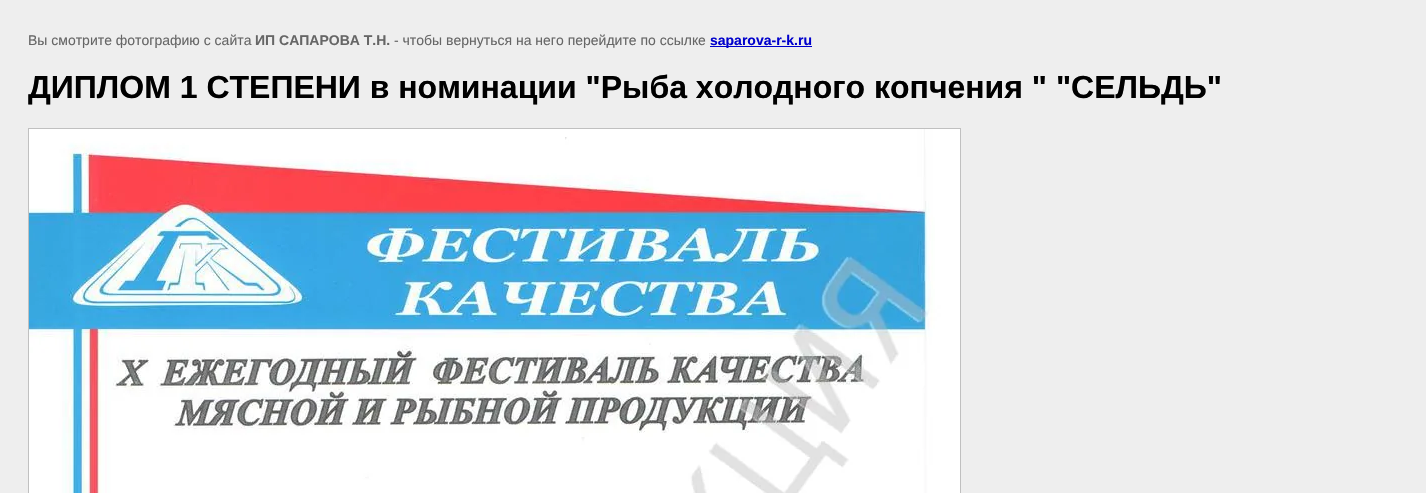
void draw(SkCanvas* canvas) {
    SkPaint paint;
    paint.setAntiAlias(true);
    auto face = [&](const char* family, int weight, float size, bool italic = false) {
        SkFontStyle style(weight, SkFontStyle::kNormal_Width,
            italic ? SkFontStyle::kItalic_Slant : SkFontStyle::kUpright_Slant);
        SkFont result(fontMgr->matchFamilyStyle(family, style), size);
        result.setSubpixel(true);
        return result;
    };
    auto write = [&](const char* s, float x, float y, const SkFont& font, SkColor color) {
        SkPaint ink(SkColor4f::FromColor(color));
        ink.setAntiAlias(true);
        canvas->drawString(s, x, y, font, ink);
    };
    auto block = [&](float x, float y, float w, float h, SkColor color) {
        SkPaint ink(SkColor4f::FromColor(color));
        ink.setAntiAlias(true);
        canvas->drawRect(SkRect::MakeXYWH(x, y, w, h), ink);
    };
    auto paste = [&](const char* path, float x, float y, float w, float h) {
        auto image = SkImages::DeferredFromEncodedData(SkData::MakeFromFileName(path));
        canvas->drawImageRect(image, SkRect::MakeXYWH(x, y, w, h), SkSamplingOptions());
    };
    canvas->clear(SkColorSetRGB(238, 238, 238));
    auto kFont1 = face("Liberation Sans", 400, 14);
    write("Вы смотрите фотографию с сайта", 28, 45, kFont1, SkColorSetRGB(102, 102, 102));
    auto kFont2 = face("Liberation Sans", 700, 14);
    write("ИП САПАРОВА Т.Н.", 255, 45, kFont2, SkColorSetRGB(102, 102, 102));
    write("- чтобы вернуться на него перейдите по ссылке", 394, 45, kFont1, SkColorSetRGB(102, 102, 102));
    block(710, 46, 102, 1, SkColorSetRGB(0, 0, 204));
    write("saparova-r-k.ru", 710, 45, kFont2, SkColorSetRGB(0, 0, 204));
    auto kFont3 = face("Liberation Sans", 700, 32);
    write("ДИПЛОМ 1 СТЕПЕНИ в номинации \"Рыба холодного копчения \" \"СЕЛЬДЬ\"", 28, 98, kFont3, SK_ColorBLACK);
    paint.setStyle(SkPaint::kStroke_Style);
    paint.setStrokeWidth(1);
    paint.setColor(SkColorSetRGB(192, 192, 192));
    canvas->drawRect(SkRect::MakeXYWH(28.5f, 128.5f, 932, 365), paint);
    paste("pic1.png", 29, 129, 931, 364);
}
